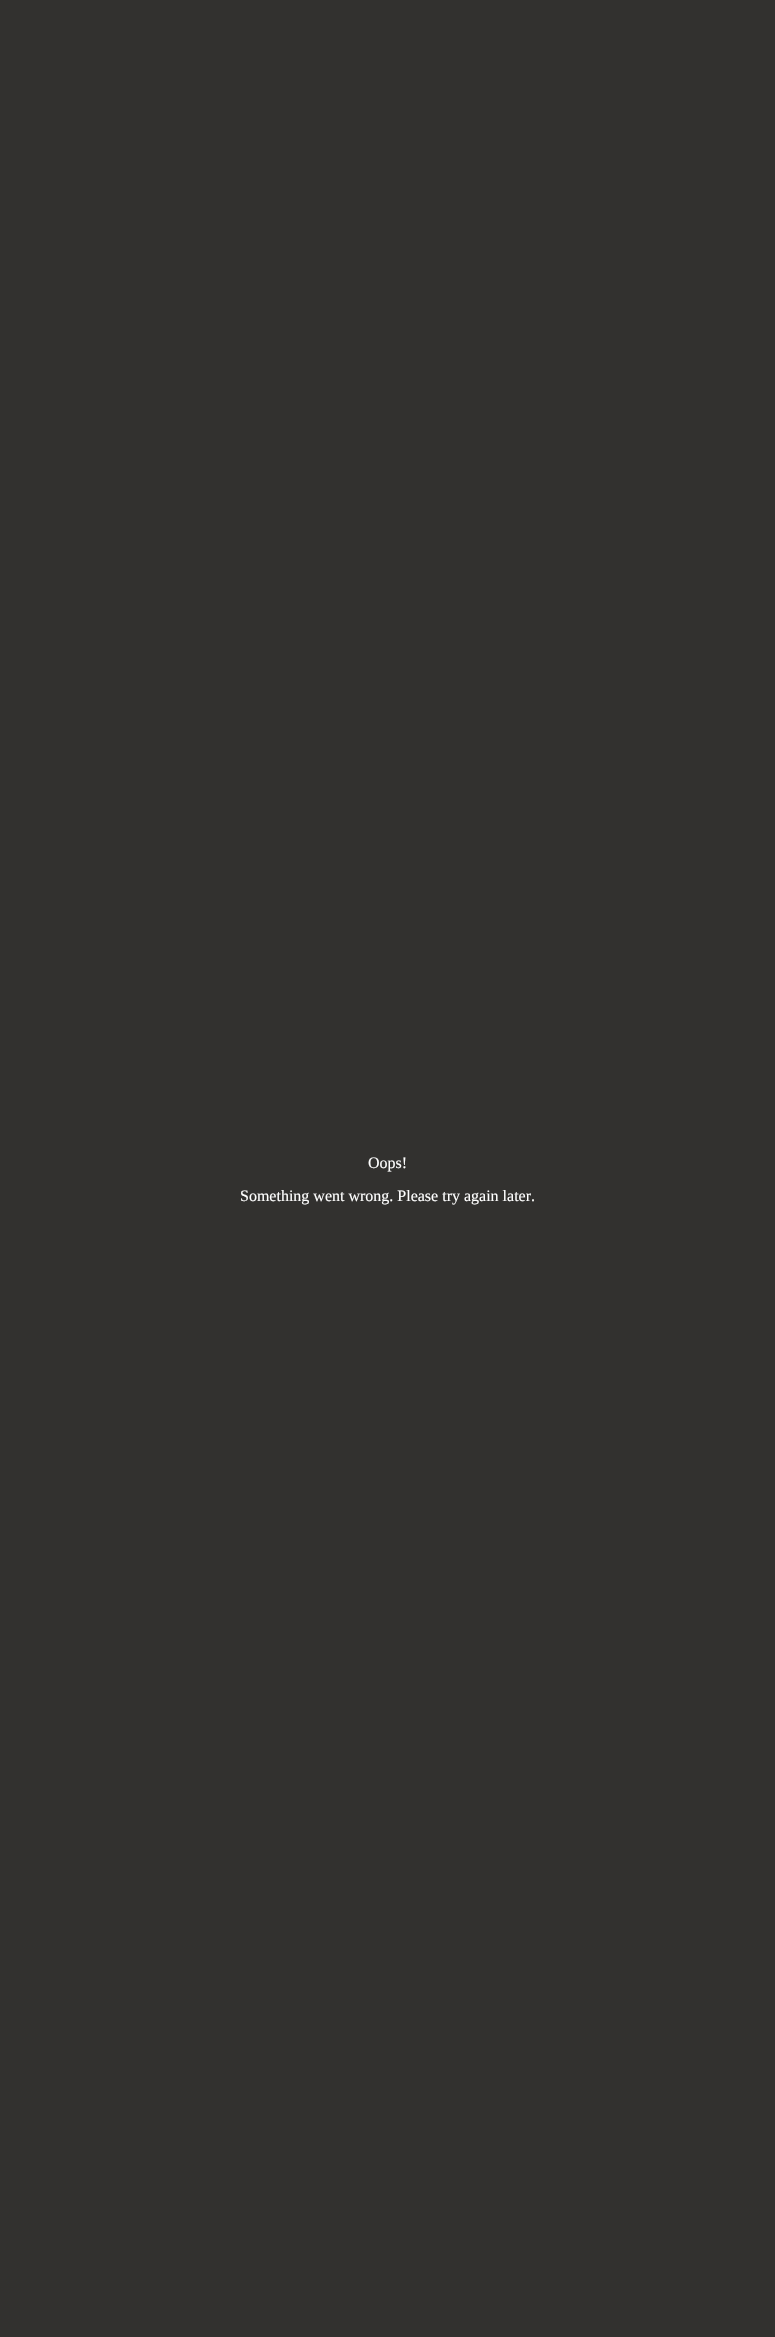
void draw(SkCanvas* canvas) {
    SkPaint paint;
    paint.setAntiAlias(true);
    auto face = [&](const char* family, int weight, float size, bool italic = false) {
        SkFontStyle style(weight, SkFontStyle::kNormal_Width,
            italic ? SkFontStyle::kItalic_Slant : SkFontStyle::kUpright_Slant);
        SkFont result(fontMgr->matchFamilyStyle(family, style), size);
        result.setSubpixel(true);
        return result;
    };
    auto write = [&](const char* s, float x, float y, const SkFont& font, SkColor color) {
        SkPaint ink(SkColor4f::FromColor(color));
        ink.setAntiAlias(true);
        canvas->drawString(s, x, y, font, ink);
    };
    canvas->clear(SkColorSetRGB(50, 49, 47));
    auto kFont1 = face("Liberation Serif", 400, 16);
    write("Oops!", 368, 1168, kFont1, SK_ColorWHITE);
    write("Something went wrong. Please try again later.", 240, 1201, kFont1, SK_ColorWHITE);
}
